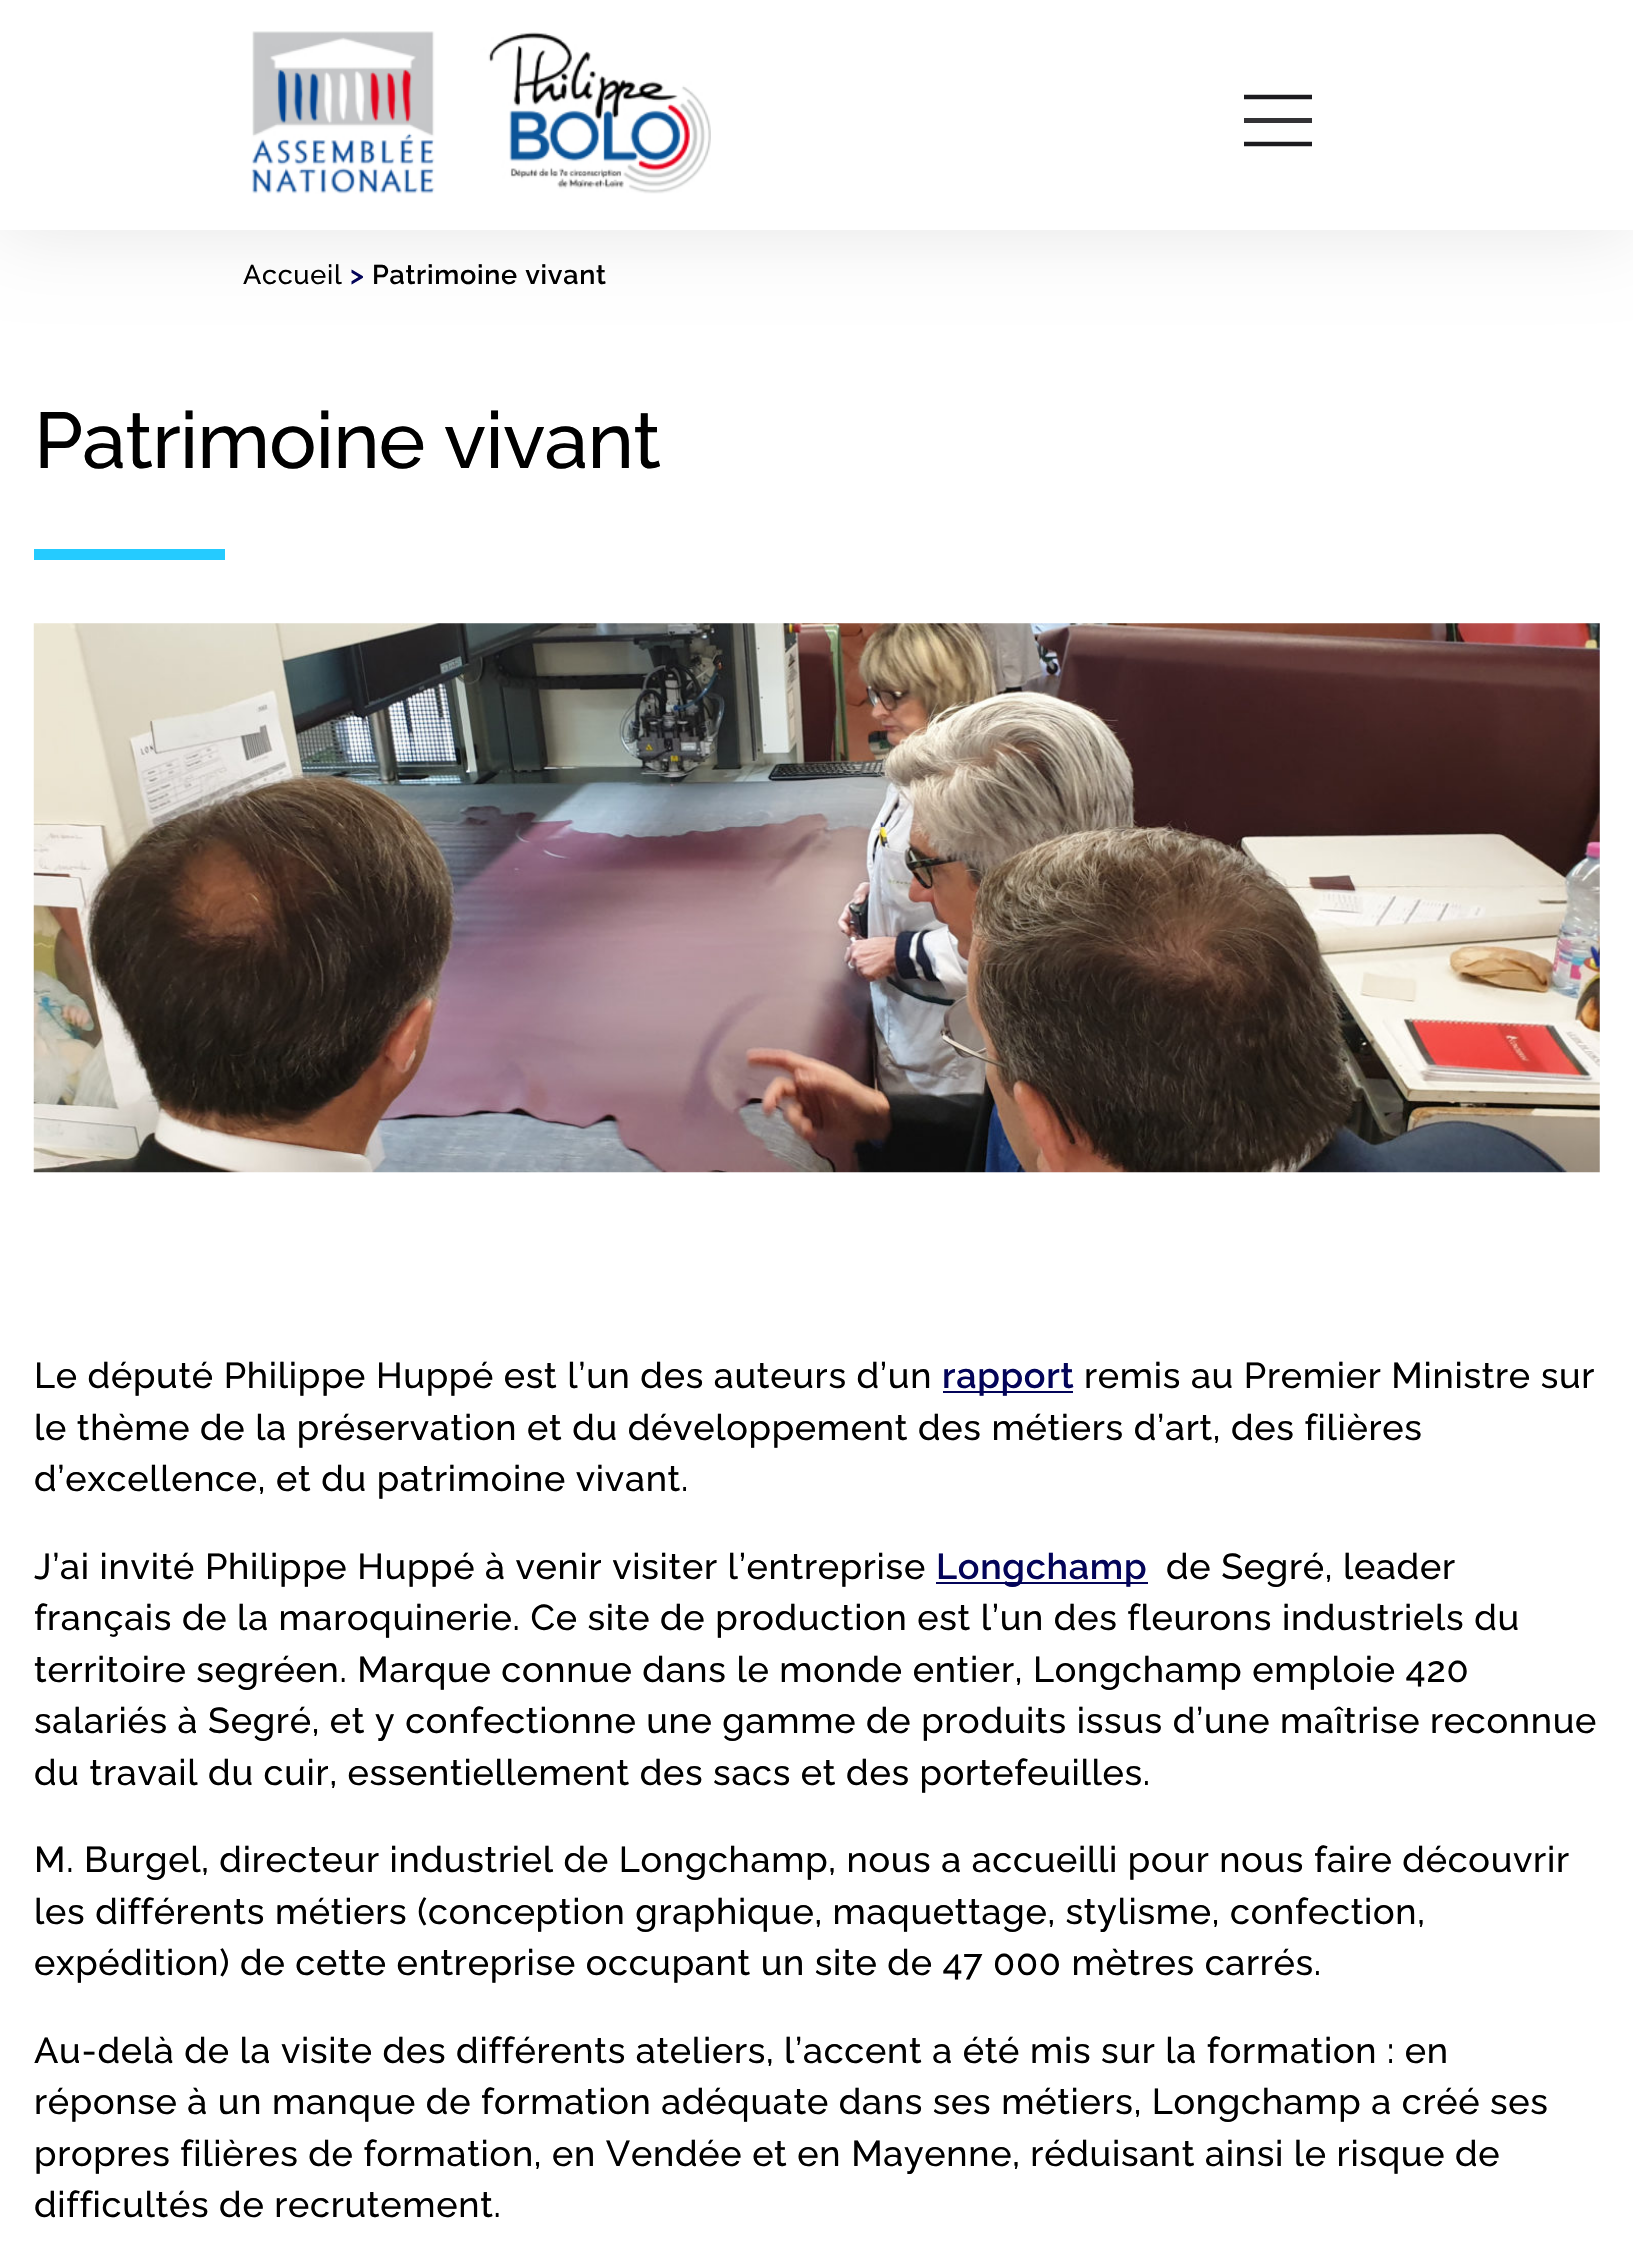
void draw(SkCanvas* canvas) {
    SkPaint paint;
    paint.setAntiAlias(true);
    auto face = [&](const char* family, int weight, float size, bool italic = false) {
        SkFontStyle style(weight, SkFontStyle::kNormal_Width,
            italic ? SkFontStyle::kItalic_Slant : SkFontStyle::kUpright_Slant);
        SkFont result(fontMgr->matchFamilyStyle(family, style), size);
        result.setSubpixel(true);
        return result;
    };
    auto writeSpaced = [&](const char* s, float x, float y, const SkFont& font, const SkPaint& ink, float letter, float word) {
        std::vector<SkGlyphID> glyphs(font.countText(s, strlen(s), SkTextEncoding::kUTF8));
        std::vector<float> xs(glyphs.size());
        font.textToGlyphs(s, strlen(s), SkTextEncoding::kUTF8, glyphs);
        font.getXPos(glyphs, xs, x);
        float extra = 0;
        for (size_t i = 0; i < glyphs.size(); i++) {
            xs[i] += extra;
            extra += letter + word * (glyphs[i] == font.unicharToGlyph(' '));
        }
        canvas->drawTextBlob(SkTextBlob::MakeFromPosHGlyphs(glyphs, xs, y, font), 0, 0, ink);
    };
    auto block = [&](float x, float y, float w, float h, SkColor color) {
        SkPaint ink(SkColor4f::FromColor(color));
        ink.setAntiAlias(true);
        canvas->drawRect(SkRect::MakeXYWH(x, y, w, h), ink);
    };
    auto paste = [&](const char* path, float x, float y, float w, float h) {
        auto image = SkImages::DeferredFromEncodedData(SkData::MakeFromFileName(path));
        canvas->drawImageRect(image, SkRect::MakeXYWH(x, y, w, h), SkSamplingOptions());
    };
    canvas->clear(SK_ColorWHITE);
    paint.setColor(SkColorSetARGB(26, 0, 0, 0));
    paint.setMaskFilter(SkMaskFilter::MakeBlur(kNormal_SkBlurStyle, 39.5f));
    canvas->drawRect(SkRect::MakeXYWH(0, 0, 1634, 230), paint);
    paint.setMaskFilter(nullptr);
    block(0, 0, 1633, 230, SK_ColorWHITE);
    paste("pic1.png", 251, 31, 460, 163);
    paint.setStyle(SkPaint::kStroke_Style);
    paint.setStrokeWidth(4.5f);
    paint.setColor(SkColorSetRGB(28, 27, 31));
    canvas->drawPath(SkPathBuilder().moveTo(1244, 97).lineTo(1312, 97).detach(), paint);
    block(1244, 118, 68, 5, SkColorSetRGB(51, 50, 53));
    canvas->drawPath(SkPathBuilder().moveTo(1244, 144).lineTo(1312, 144).detach(), paint);
    auto kFont1 = face("Raleway", 500, 27);
    paint.setStyle(SkPaint::kFill_Style);
    paint.setColor(SK_ColorBLACK);
    writeSpaced("Accueil", 243, 284, kFont1, paint, 0.72f, 0);
    auto kFont2 = face("Raleway", 600, 27);
    paint.setColor(SkColorSetRGB(3, 4, 89));
    writeSpaced(">", 350, 284, kFont2, paint, 0.72f, 0);
    paint.setColor(SK_ColorBLACK);
    writeSpaced("Patrimoine vivant", 372, 284, kFont2, paint, 0.72f, 0);
    auto kFont3 = face("Raleway", 500, 78.75f);
    writeSpaced("Patrimoine vivant", 34, 468, kFont3, paint, -0.75f, 0);
    block(34, 549, 191, 11, SkColorSetRGB(37, 203, 255));
    paste("pic2.png", 33, 623, 1567, 550);
    auto kFont4 = face("Raleway", 500, 36);
    writeSpaced("Le député Philippe Huppé est l’un des auteurs d’un", 34, 1388, kFont4, paint, 0.72f, 0);
    block(943, 1391, 130, 2, SkColorSetRGB(3, 4, 89));
    auto kFont5 = face("Raleway", 600, 36);
    paint.setColor(SkColorSetRGB(3, 4, 89));
    writeSpaced("rapport", 942, 1388, kFont5, paint, 0.72f, 0);
    paint.setColor(SK_ColorBLACK);
    writeSpaced("remis au Premier Ministre sur", 1084, 1388, kFont4, paint, 0.72f, 0);
    writeSpaced("le thème de la préservation et du développement des métiers d’art, des filières", 34, 1440, kFont4, paint, 0.72f, 0);
    writeSpaced("d’excellence, et du patrimoine vivant.", 34, 1491, kFont4, paint, 0.72f, 0);
    writeSpaced("J’ai invité Philippe Huppé à venir visiter l’entreprise", 34, 1579, kFont4, paint, 0.72f, 0);
    block(936, 1582, 212, 2, SkColorSetRGB(3, 4, 89));
    paint.setColor(SkColorSetRGB(3, 4, 89));
    writeSpaced("Longchamp", 936, 1579, kFont5, paint, 0.72f, 0);
    paint.setColor(SK_ColorBLACK);
    writeSpaced("de Segré, leader", 1166, 1579, kFont4, paint, 0.72f, 0);
    writeSpaced("français de la maroquinerie. Ce site de production est l’un des fleurons industriels du", 34, 1630, kFont4, paint, 0.72f, 0);
    writeSpaced("territoire segréen. Marque connue dans le monde entier, Longchamp emploie 420", 34, 1682, kFont4, paint, 0.72f, 0);
    writeSpaced("salariés à Segré, et y confectionne une gamme de produits issus d’une maîtrise reconnue", 34, 1733, kFont4, paint, 0.72f, 0);
    writeSpaced("du travail du cuir, essentiellement des sacs et des portefeuilles.", 34, 1785, kFont4, paint, 0.72f, 0);
    writeSpaced("M. Burgel, directeur industriel de Longchamp, nous a accueilli pour nous faire découvrir", 34, 1872, kFont4, paint, 0.72f, 0);
    writeSpaced("les différents métiers (conception graphique, maquettage, stylisme, confection,", 34, 1924, kFont4, paint, 0.72f, 0);
    writeSpaced("expédition) de cette entreprise occupant un site de 47 000 mètres carrés.", 34, 1975, kFont4, paint, 0.72f, 0);
    writeSpaced("Au-delà de la visite des différents ateliers, l’accent a été mis sur la formation : en", 34, 2063, kFont4, paint, 0.72f, 0);
    writeSpaced("réponse à un manque de formation adéquate dans ses métiers, Longchamp a créé ses", 34, 2114, kFont4, paint, 0.72f, 0);
    writeSpaced("propres filières de formation, en Vendée et en Mayenne, réduisant ainsi le risque de", 34, 2166, kFont4, paint, 0.72f, 0);
    writeSpaced("difficultés de recrutement.", 34, 2217, kFont4, paint, 0.72f, 0);
}
